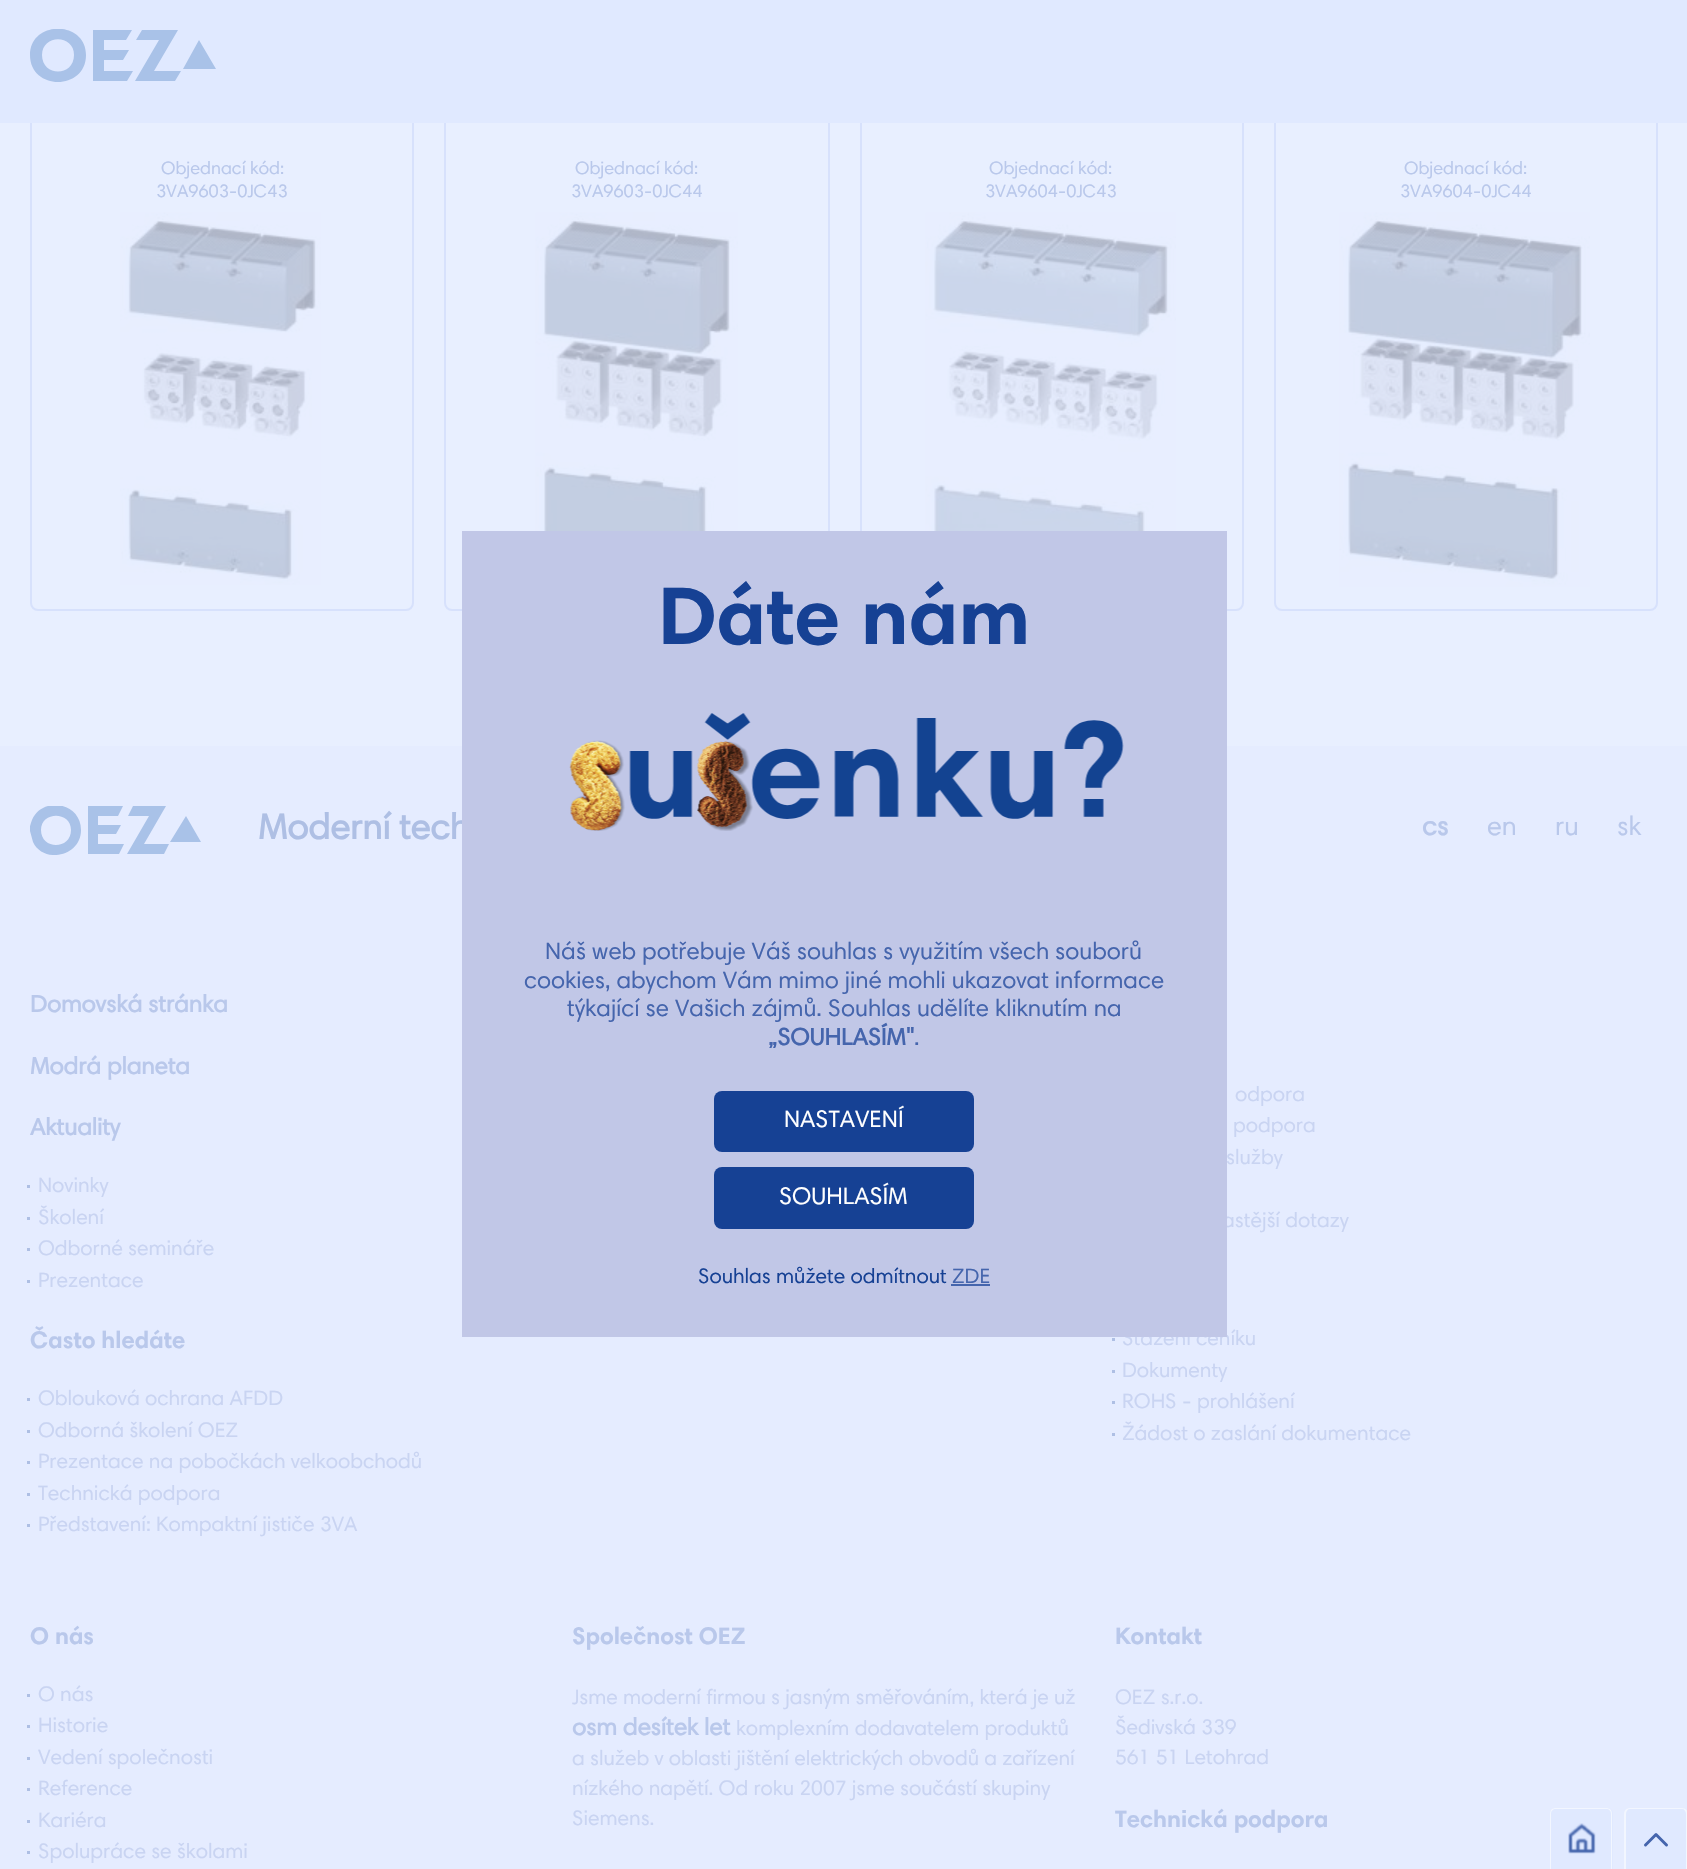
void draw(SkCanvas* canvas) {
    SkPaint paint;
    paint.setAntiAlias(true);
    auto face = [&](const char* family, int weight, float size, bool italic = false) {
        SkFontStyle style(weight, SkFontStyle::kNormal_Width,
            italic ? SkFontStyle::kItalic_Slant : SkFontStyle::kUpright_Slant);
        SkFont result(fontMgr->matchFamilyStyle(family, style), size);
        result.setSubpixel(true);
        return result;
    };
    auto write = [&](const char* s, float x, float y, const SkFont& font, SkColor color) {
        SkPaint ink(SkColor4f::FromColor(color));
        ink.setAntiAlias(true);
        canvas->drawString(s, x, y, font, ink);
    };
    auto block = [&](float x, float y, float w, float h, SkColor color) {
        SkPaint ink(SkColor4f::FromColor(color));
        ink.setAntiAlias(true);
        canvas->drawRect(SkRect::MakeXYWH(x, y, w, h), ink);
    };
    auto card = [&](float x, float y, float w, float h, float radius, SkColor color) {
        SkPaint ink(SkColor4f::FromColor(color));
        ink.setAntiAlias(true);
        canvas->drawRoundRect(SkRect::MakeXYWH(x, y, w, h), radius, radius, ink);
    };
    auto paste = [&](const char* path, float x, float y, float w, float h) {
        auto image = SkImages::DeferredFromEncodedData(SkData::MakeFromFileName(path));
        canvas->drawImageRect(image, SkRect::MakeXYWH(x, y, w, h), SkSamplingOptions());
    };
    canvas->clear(SkColorSetRGB(232, 239, 255));
    paint.setStyle(SkPaint::kStroke_Style);
    paint.setStrokeWidth(2);
    paint.setColor(SkColorSetRGB(215, 225, 252));
    canvas->drawRoundRect(SkRect::MakeXYWH(31, 82, 382, 528), 7, 7, paint);
    canvas->drawRoundRect(SkRect::MakeXYWH(445, 82, 384, 528), 7, 7, paint);
    canvas->drawRoundRect(SkRect::MakeXYWH(861, 82, 382, 528), 7, 7, paint);
    canvas->drawRoundRect(SkRect::MakeXYWH(1275, 82, 382, 528), 7, 7, paint);
    block(0, 0, 1687, 123, SkColorSetRGB(224, 233, 255));
    canvas->save();
    canvas->clipRect(SkRect::MakeXYWH(30, 29, 186, 54));
    paint.setStyle(SkPaint::kFill_Style);
    paint.setColor(SkColorSetRGB(169, 194, 232));
    canvas->drawPath(SkPathBuilder(SkPathFillType::kEvenOdd).moveTo(159, 40).lineTo(136, 40).lineTo(142, 30).lineTo(178, 30).lineTo(154, 71).lineTo(181, 71).lineTo(175, 81).lineTo(135, 81).moveTo(86, 55).cubicTo(86, 91, 30, 91, 30, 55).cubicTo(30, 20, 86, 20, 86, 55).close().moveTo(74, 55).cubicTo(74, 34, 42, 34, 42, 55).cubicTo(42, 77, 74, 77, 74, 55).close().moveTo(93, 30).lineTo(132, 30).lineTo(126, 40).lineTo(104, 40).lineTo(104, 50).lineTo(129, 50).lineTo(123, 60).lineTo(104, 60).lineTo(104, 71).lineTo(133, 71).lineTo(127, 81).lineTo(93, 81).moveTo(216, 69).lineTo(183, 69).lineTo(199, 40).detach(), paint);
    canvas->restore();
    auto kFont1 = face("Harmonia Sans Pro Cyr", 400, 18);
    write("Objednací kód:", 161, 174, kFont1, SkColorSetRGB(185, 200, 235));
    write("3VA9603-0JC43", 156, 197, kFont1, SkColorSetRGB(185, 200, 235));
    paste("pic1.png", 120, 212, 201, 373);
    write("Objednací kód:", 575, 174, kFont1, SkColorSetRGB(185, 200, 235));
    write("3VA9603-0JC44", 571, 197, kFont1, SkColorSetRGB(185, 200, 235));
    paste("pic2.png", 535, 212, 203, 319);
    write("Objednací kód:", 989, 174, kFont1, SkColorSetRGB(185, 200, 235));
    write("3VA9604-0JC43", 985, 197, kFont1, SkColorSetRGB(185, 200, 235));
    paste("pic3.png", 925, 212, 251, 319);
    write("Objednací kód:", 1404, 174, kFont1, SkColorSetRGB(185, 200, 235));
    write("3VA9604-0JC44", 1400, 197, kFont1, SkColorSetRGB(185, 200, 235));
    paste("pic4.png", 1339, 212, 251, 375);
    block(0, 746, 1687, 1123, SkColorSetRGB(229, 236, 255));
    auto kFont2 = face("Harmonia Sans Pro Cyr", 700, 36);
    write("Moderní tech", 258, 839, kFont2, SkColorSetRGB(174, 191, 228));
    auto kFont3 = face("Harmonia Sans Pro Cyr", 400, 21);
    write("astější dotazy", 1222, 1227, kFont3, SkColorSetRGB(201, 212, 242));
    write("Stažení ceníku", 1122, 1345, kFont3, SkColorSetRGB(201, 212, 242));
    block(462, 531, 765, 806, SkColorSetRGB(193, 199, 231));
    auto kFont4 = face("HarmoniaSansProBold", 700, 82.5f);
    write("Dáte nám", 658, 644, kFont4, SkColorSetRGB(22, 65, 148));
    paste("pic5.png", 569, 713, 555, 118);
    auto kFont5 = face("Harmonia Sans Pro Cyr", 400, 24);
    write("Náš web potřebuje Váš souhlas s využitím všech souborů", 545, 959, kFont5, SkColorSetRGB(69, 101, 173));
    write("cookies, abychom Vám mimo jiné mohli ukazovat informace", 524, 988, kFont5, SkColorSetRGB(69, 101, 173));
    write("týkající se Vašich zájmů. Souhlas udělíte kliknutím na", 567, 1016, kFont5, SkColorSetRGB(69, 101, 173));
    auto kFont6 = face("Harmonia Sans Pro Cyr", 700, 24);
    write("„SOUHLASÍM\"", 768, 1045, kFont6, SkColorSetRGB(69, 101, 173));
    write(".", 914, 1045, kFont5, SkColorSetRGB(69, 101, 173));
    card(714, 1091, 260, 61, 8, SkColorSetRGB(22, 65, 148));
    write("NASTAVENÍ", 784, 1127, kFont5, SK_ColorWHITE);
    card(714, 1167, 260, 62, 8, SkColorSetRGB(22, 65, 148));
    write("SOUHLASÍM", 779, 1204, kFont5, SK_ColorWHITE);
    write("Souhlas můžete odmítnout", 698, 1283, kFont3, SkColorSetRGB(22, 65, 148));
    write("ZDE", 952, 1283, kFont3, SkColorSetRGB(69, 101, 173));
    block(951, 1284, 39, 2, SkColorSetRGB(69, 101, 173));
    canvas->save();
    canvas->clipRect(SkRect::MakeXYWH(30, 806, 171, 49));
    canvas->drawPath(SkPathBuilder(SkPathFillType::kEvenOdd).moveTo(81, 830).cubicTo(81, 802, 42, 796, 32, 820).cubicTo(31, 823, 29, 827, 30, 831).lineTo(33, 842).cubicTo(43, 864, 81, 857, 81, 830).close().moveTo(201, 842).lineTo(170, 842).lineTo(186, 816).close().moveTo(88, 806).lineTo(88, 854).lineTo(119, 854).lineTo(124, 844).lineTo(98, 844).lineTo(98, 834).lineTo(116, 834).lineTo(121, 825).lineTo(98, 825).lineTo(98, 816).lineTo(118, 816).lineTo(123, 806).close().moveTo(149, 816).lineTo(127, 854).lineTo(164, 854).lineTo(169, 844).lineTo(144, 844).lineTo(166, 806).lineTo(133, 806).lineTo(128, 816).close().moveTo(71, 830).cubicTo(71, 850, 41, 850, 41, 830).cubicTo(41, 811, 71, 811, 71, 830).close().detach(), paint);
    canvas->restore();
    auto kFont7 = face("Harmonia Sans Pro Cyr", 700, 27);
    write("cs", 1422, 835, kFont7, SkColorSetRGB(185, 200, 235));
    auto kFont8 = face("Harmonia Sans Pro Cyr", 400, 27);
    write("en", 1487, 835, kFont8, SkColorSetRGB(185, 200, 235));
    write("ru", 1555, 835, kFont8, SkColorSetRGB(185, 200, 235));
    write("sk", 1617, 835, kFont8, SkColorSetRGB(185, 200, 235));
    write("Domovská stránka", 30, 1012, kFont6, SkColorSetRGB(185, 200, 235));
    write("Modrá planeta", 30, 1074, kFont6, SkColorSetRGB(185, 200, 235));
    write("Aktuality", 30, 1135, kFont6, SkColorSetRGB(185, 200, 235));
    block(27, 1185, 3, 3, SkColorSetRGB(174, 191, 228));
    write("Novinky", 38, 1192, kFont3, SkColorSetRGB(201, 212, 242));
    block(27, 1217, 3, 3, SkColorSetRGB(174, 191, 228));
    write("Školení", 38, 1224, kFont3, SkColorSetRGB(201, 212, 242));
    block(27, 1248, 3, 3, SkColorSetRGB(174, 191, 228));
    write("Odborné semináře", 38, 1255, kFont3, SkColorSetRGB(201, 212, 242));
    block(27, 1280, 3, 3, SkColorSetRGB(174, 191, 228));
    write("Prezentace", 38, 1287, kFont3, SkColorSetRGB(201, 212, 242));
    auto kFont9 = face("HarmoniaSansProBold", 700, 24);
    write("Často hledáte", 30, 1348, kFont9, SkColorSetRGB(185, 200, 235));
    block(27, 1398, 3, 3, SkColorSetRGB(174, 191, 228));
    write("Oblouková ochrana AFDD", 38, 1405, kFont3, SkColorSetRGB(201, 212, 242));
    block(27, 1430, 3, 3, SkColorSetRGB(174, 191, 228));
    write("Odborná školení OEZ", 38, 1437, kFont3, SkColorSetRGB(201, 212, 242));
    block(27, 1461, 3, 3, SkColorSetRGB(174, 191, 228));
    write("Prezentace na pobočkách velkoobchodů", 38, 1468, kFont3, SkColorSetRGB(201, 212, 242));
    block(27, 1493, 3, 3, SkColorSetRGB(174, 191, 228));
    write("Technická podpora", 38, 1500, kFont3, SkColorSetRGB(201, 212, 242));
    block(27, 1524, 3, 3, SkColorSetRGB(174, 191, 228));
    write("Představení: Kompaktní jističe 3VA", 38, 1531, kFont3, SkColorSetRGB(201, 212, 242));
    write("odpora", 1235, 1101, kFont3, SkColorSetRGB(201, 212, 242));
    write("podpora", 1233, 1132, kFont3, SkColorSetRGB(201, 212, 242));
    write("služby", 1226, 1164, kFont3, SkColorSetRGB(201, 212, 242));
    block(1112, 1338, 3, 3, SkColorSetRGB(174, 191, 228));
    block(1112, 1370, 3, 3, SkColorSetRGB(174, 191, 228));
    write("Dokumenty", 1122, 1377, kFont3, SkColorSetRGB(201, 212, 242));
    block(1112, 1401, 3, 3, SkColorSetRGB(174, 191, 228));
    write("ROHS - prohlášení", 1122, 1408, kFont3, SkColorSetRGB(201, 212, 242));
    block(1112, 1433, 3, 3, SkColorSetRGB(174, 191, 228));
    write("Žádost o zaslání dokumentace", 1122, 1440, kFont3, SkColorSetRGB(201, 212, 242));
    write("O nás", 30, 1644, kFont9, SkColorSetRGB(185, 200, 235));
    block(27, 1694, 3, 3, SkColorSetRGB(174, 191, 228));
    write("O nás", 38, 1701, kFont3, SkColorSetRGB(201, 212, 242));
    block(27, 1725, 3, 3, SkColorSetRGB(174, 191, 228));
    write("Historie", 38, 1732, kFont3, SkColorSetRGB(201, 212, 242));
    block(27, 1757, 3, 3, SkColorSetRGB(174, 191, 228));
    write("Vedení společnosti", 38, 1764, kFont3, SkColorSetRGB(201, 212, 242));
    block(27, 1788, 3, 3, SkColorSetRGB(174, 191, 228));
    write("Reference", 38, 1795, kFont3, SkColorSetRGB(201, 212, 242));
    block(27, 1820, 3, 3, SkColorSetRGB(174, 191, 228));
    write("Kariéra", 38, 1827, kFont3, SkColorSetRGB(201, 212, 242));
    block(27, 1851, 3, 3, SkColorSetRGB(174, 191, 228));
    write("Spolupráce se školami", 38, 1858, kFont3, SkColorSetRGB(201, 212, 242));
    write("Společnost OEZ", 572, 1644, kFont9, SkColorSetRGB(185, 200, 235));
    write("Jsme moderní firmou s jasným směřováním, která je už", 572, 1704, kFont3, SkColorSetRGB(201, 212, 242));
    write("osm desítek let", 572, 1735, kFont6, SkColorSetRGB(185, 200, 235));
    write("komplexním dodavatelem produktů", 736, 1735, kFont3, SkColorSetRGB(201, 212, 242));
    write("a služeb v oblasti jištění elektrických obvodů a zařízení", 572, 1765, kFont3, SkColorSetRGB(201, 212, 242));
    write("nízkého napětí. Od roku 2007 jsme součástí skupiny", 572, 1795, kFont3, SkColorSetRGB(201, 212, 242));
    write("Siemens.", 572, 1825, kFont3, SkColorSetRGB(201, 212, 242));
    write("Kontakt", 1115, 1644, kFont9, SkColorSetRGB(185, 200, 235));
    write("OEZ s.r.o.", 1115, 1704, kFont3, SkColorSetRGB(201, 212, 242));
    write("Šedivská 339", 1115, 1734, kFont3, SkColorSetRGB(201, 212, 242));
    write("561 51 Letohrad", 1115, 1764, kFont3, SkColorSetRGB(201, 212, 242));
    write("Technická podpora", 1115, 1827, kFont9, SkColorSetRGB(185, 200, 235));
    paint.setColor(SkColorSetRGB(224, 233, 255));
    canvas->drawPath(SkPathBuilder().moveTo(1556, 1808).lineTo(1607, 1808).cubicTo(1610.5f, 1808, 1613, 1810.5f, 1613, 1814).lineTo(1613, 1869).lineTo(1550, 1869).lineTo(1550, 1814).cubicTo(1550, 1810.5f, 1552.5f, 1808, 1556, 1808).close().detach(), paint);
    paste("pic6.png", 1568, 1823, 28, 31);
    paint.setColor(SkColorSetRGB(242, 246, 255));
    canvas->drawPath(SkPathBuilder(SkPathFillType::kEvenOdd).moveTo(1556, 1808).lineTo(1606, 1808).cubicTo(1610, 1808, 1612, 1810, 1612, 1814).lineTo(1612, 1869).lineTo(1550, 1869).lineTo(1550, 1814).cubicTo(1550, 1810, 1552, 1808, 1556, 1808).close().moveTo(1556, 1809).lineTo(1606, 1809).cubicTo(1609, 1809, 1611, 1811, 1611, 1814).lineTo(1611, 1869).lineTo(1551, 1869).lineTo(1551, 1814).cubicTo(1551, 1811, 1553, 1809, 1556, 1809).close().detach(), paint);
    paint.setColor(SkColorSetRGB(224, 233, 255));
    canvas->drawPath(SkPathBuilder().moveTo(1631, 1808).lineTo(1682, 1808).cubicTo(1685.5f, 1808, 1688, 1810.5f, 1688, 1814).lineTo(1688, 1869).lineTo(1625, 1869).lineTo(1625, 1814).cubicTo(1625, 1810.5f, 1627.5f, 1808, 1631, 1808).close().detach(), paint);
    paint.setStyle(SkPaint::kStroke_Style);
    paint.setStrokeWidth(3);
    paint.setStrokeCap(SkPaint::kRound_Cap);
    paint.setColor(SkColorSetRGB(69, 101, 173));
    canvas->drawPath(SkPathBuilder().moveTo(1666.5f, 1845).lineTo(1656, 1834.5f).moveTo(1645.5f, 1845).lineTo(1656, 1834.5f).detach(), paint);
    paint.setStyle(SkPaint::kFill_Style);
    paint.setColor(SkColorSetRGB(242, 246, 255));
    canvas->drawPath(SkPathBuilder(SkPathFillType::kEvenOdd).moveTo(1630, 1808).lineTo(1682, 1808).cubicTo(1685, 1808, 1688, 1810, 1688, 1814).lineTo(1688, 1869).lineTo(1624, 1869).lineTo(1624, 1814).cubicTo(1624, 1810, 1627, 1808, 1630, 1808).close().moveTo(1630, 1809).lineTo(1682, 1809).cubicTo(1684, 1809, 1686, 1811, 1686, 1814).lineTo(1686, 1869).lineTo(1626, 1869).lineTo(1626, 1814).cubicTo(1626, 1811, 1628, 1809, 1630, 1809).close().detach(), paint);
}
